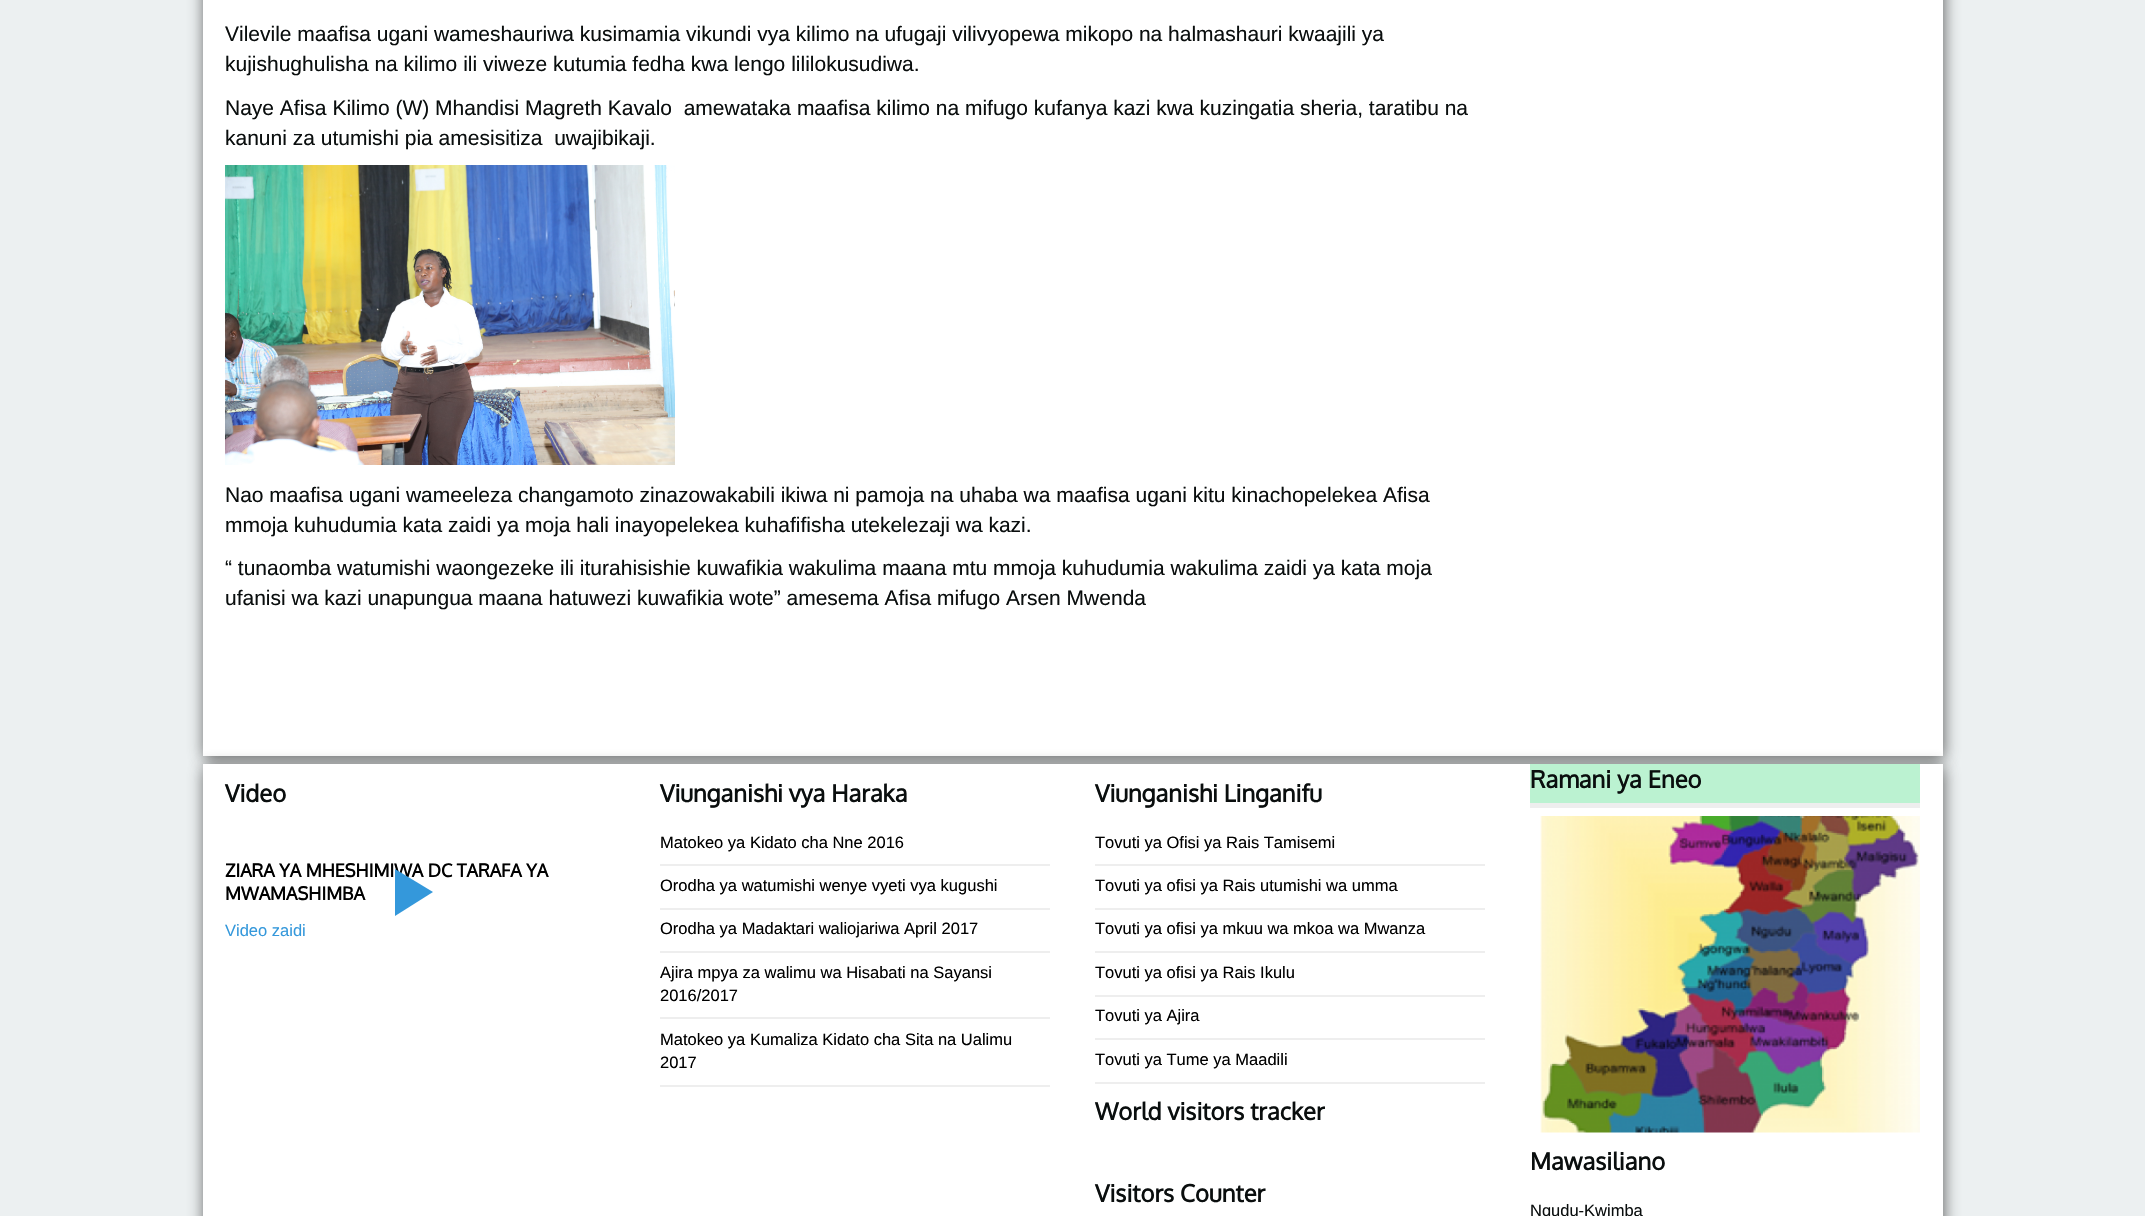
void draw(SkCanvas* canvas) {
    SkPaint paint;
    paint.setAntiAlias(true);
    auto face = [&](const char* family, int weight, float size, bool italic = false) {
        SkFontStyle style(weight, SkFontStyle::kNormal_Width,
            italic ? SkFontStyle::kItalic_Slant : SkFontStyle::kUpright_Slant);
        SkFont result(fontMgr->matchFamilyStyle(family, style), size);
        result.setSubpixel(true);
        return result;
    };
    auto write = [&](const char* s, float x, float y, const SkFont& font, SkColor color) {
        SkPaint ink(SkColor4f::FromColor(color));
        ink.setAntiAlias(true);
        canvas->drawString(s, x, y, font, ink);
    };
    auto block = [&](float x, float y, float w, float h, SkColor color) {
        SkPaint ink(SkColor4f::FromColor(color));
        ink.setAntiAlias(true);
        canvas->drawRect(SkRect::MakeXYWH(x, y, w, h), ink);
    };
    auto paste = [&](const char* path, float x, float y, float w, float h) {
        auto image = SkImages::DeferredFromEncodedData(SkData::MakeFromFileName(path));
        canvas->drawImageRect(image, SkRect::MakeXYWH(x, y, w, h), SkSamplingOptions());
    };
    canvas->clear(SkColorSetRGB(236, 240, 241));
    paint.setColor(SkColorSetARGB(191, 50, 50, 50));
    paint.setMaskFilter(SkMaskFilter::MakeBlur(kNormal_SkBlurStyle, 7.5f));
    canvas->drawRect(SkRect::MakeXYWH(204, -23, 1740, 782), paint);
    paint.setMaskFilter(nullptr);
    block(203, 0, 1740, 756, SK_ColorWHITE);
    auto kFont1 = face("Liberation Sans", 400, 21);
    write("Vilevile maafisa ugani wameshauriwa kusimamia vikundi vya kilimo na ufugaji vilivyopewa mikopo na halmashauri kwaajili ya", 225, 41, kFont1, SkColorSetRGB(10, 14, 14));
    write("kujishughulisha na kilimo ili viweze kutumia fedha kwa lengo lililokusudiwa.", 225, 71, kFont1, SkColorSetRGB(10, 14, 14));
    write("Naye Afisa Kilimo (W) Mhandisi Magreth Kavalo  amewataka maafisa kilimo na mifugo kufanya kazi kwa kuzingatia sheria, taratibu na", 225, 115, kFont1, SkColorSetRGB(10, 14, 14));
    write("kanuni za utumishi pia amesisitiza  uwajibikaji.", 225, 145, kFont1, SkColorSetRGB(10, 14, 14));
    paste("pic1.png", 225, 165, 450, 300);
    write("Nao maafisa ugani wameeleza changamoto zinazowakabili ikiwa ni pamoja na uhaba wa maafisa ugani kitu kinachopelekea Afisa", 225, 502, kFont1, SkColorSetRGB(10, 14, 14));
    write("mmoja kuhudumia kata zaidi ya moja hali inayopelekea kuhafifisha utekelezaji wa kazi.", 225, 532, kFont1, SkColorSetRGB(10, 14, 14));
    write("“ tunaomba watumishi waongezeke ili iturahisishie kuwafikia wakulima maana mtu mmoja kuhudumia wakulima zaidi ya kata moja", 225, 575, kFont1, SkColorSetRGB(10, 14, 14));
    write("ufanisi wa kazi unapungua maana hatuwezi kuwafikia wote” amesema Afisa mifugo Arsen Mwenda", 225, 605, kFont1, SkColorSetRGB(10, 14, 14));
    paint.setMaskFilter(SkMaskFilter::MakeBlur(kNormal_SkBlurStyle, 7.5f));
    canvas->drawRect(SkRect::MakeXYWH(204, 767, 1740, 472), paint);
    paint.setMaskFilter(nullptr);
    block(203, 764, 1740, 452, SK_ColorWHITE);
    auto kFont2 = face("Oxygen", 700, 23.75f);
    write("Video", 225, 802, kFont2, SkColorSetRGB(10, 14, 14));
    auto kFont3 = face("Oxygen", 700, 18);
    write("ZIARA YA MHESHIMIWA DC TARAFA YA", 225, 877, kFont3, SK_ColorBLACK);
    write("MWAMASHIMBA", 225, 900, kFont3, SK_ColorBLACK);
    paint.setColor(SkColorSetRGB(52, 152, 219));
    canvas->drawPath(SkPathBuilder().moveTo(395, 869).lineTo(395, 916).lineTo(433, 892).close().detach(), paint);
    auto kFont4 = face("Liberation Sans", 400, 16.5f);
    write("Video zaidi", 225, 936, kFont4, SkColorSetRGB(52, 152, 219));
    write("Viunganishi vya Haraka", 660, 802, kFont2, SkColorSetRGB(10, 14, 14));
    block(660, 864, 390, 2, SkColorSetRGB(238, 238, 238));
    write("Matokeo ya Kidato cha Nne 2016", 660, 848, kFont4, SK_ColorBLACK);
    block(660, 908, 390, 2, SkColorSetRGB(238, 238, 238));
    write("Orodha ya watumishi wenye vyeti vya kugushi", 660, 891, kFont4, SK_ColorBLACK);
    block(660, 951, 390, 2, SkColorSetRGB(238, 238, 238));
    write("Orodha ya Madaktari waliojariwa April 2017", 660, 934, kFont4, SK_ColorBLACK);
    block(660, 1017, 390, 2, SkColorSetRGB(238, 238, 238));
    write("Ajira mpya za walimu wa Hisabati na Sayansi", 660, 978, kFont4, SK_ColorBLACK);
    write("2016/2017", 660, 1001, kFont4, SK_ColorBLACK);
    block(660, 1085, 390, 2, SkColorSetRGB(238, 238, 238));
    write("Matokeo ya Kumaliza Kidato cha Sita na Ualimu", 660, 1045, kFont4, SK_ColorBLACK);
    write("2017", 660, 1068, kFont4, SK_ColorBLACK);
    write("Viunganishi Linganifu", 1095, 802, kFont2, SkColorSetRGB(10, 14, 14));
    block(1095, 864, 390, 2, SkColorSetRGB(238, 238, 238));
    write("Tovuti ya Ofisi ya Rais Tamisemi", 1095, 848, kFont4, SK_ColorBLACK);
    block(1095, 908, 390, 2, SkColorSetRGB(238, 238, 238));
    write("Tovuti ya ofisi ya Rais utumishi wa umma", 1095, 891, kFont4, SK_ColorBLACK);
    block(1095, 951, 390, 2, SkColorSetRGB(238, 238, 238));
    write("Tovuti ya ofisi ya mkuu wa mkoa wa Mwanza", 1095, 934, kFont4, SK_ColorBLACK);
    block(1095, 995, 390, 2, SkColorSetRGB(238, 238, 238));
    write("Tovuti ya ofisi ya Rais Ikulu", 1095, 978, kFont4, SK_ColorBLACK);
    block(1095, 1038, 390, 2, SkColorSetRGB(238, 238, 238));
    write("Tovuti ya Ajira", 1095, 1021, kFont4, SK_ColorBLACK);
    block(1095, 1082, 390, 2, SkColorSetRGB(238, 238, 238));
    write("Tovuti ya Tume ya Maadili", 1095, 1065, kFont4, SK_ColorBLACK);
    write("World visitors tracker", 1095, 1120, kFont2, SkColorSetRGB(10, 14, 14));
    write("Visitors Counter", 1095, 1202, kFont2, SkColorSetRGB(10, 14, 14));
    block(1530, 764, 390, 39, SkColorSetRGB(187, 242, 209));
    block(1530, 803, 390, 5, SkColorSetRGB(238, 238, 238));
    write("Ramani ya Eneo", 1530, 788, kFont2, SkColorSetRGB(10, 14, 14));
    paste("pic2.png", 1540, 816, 380, 317);
    write("Mawasiliano", 1530, 1170, kFont2, SkColorSetRGB(10, 14, 14));
    write("Ngudu-Kwimba", 1530, 1216, kFont4, SkColorSetRGB(10, 14, 14));
}
